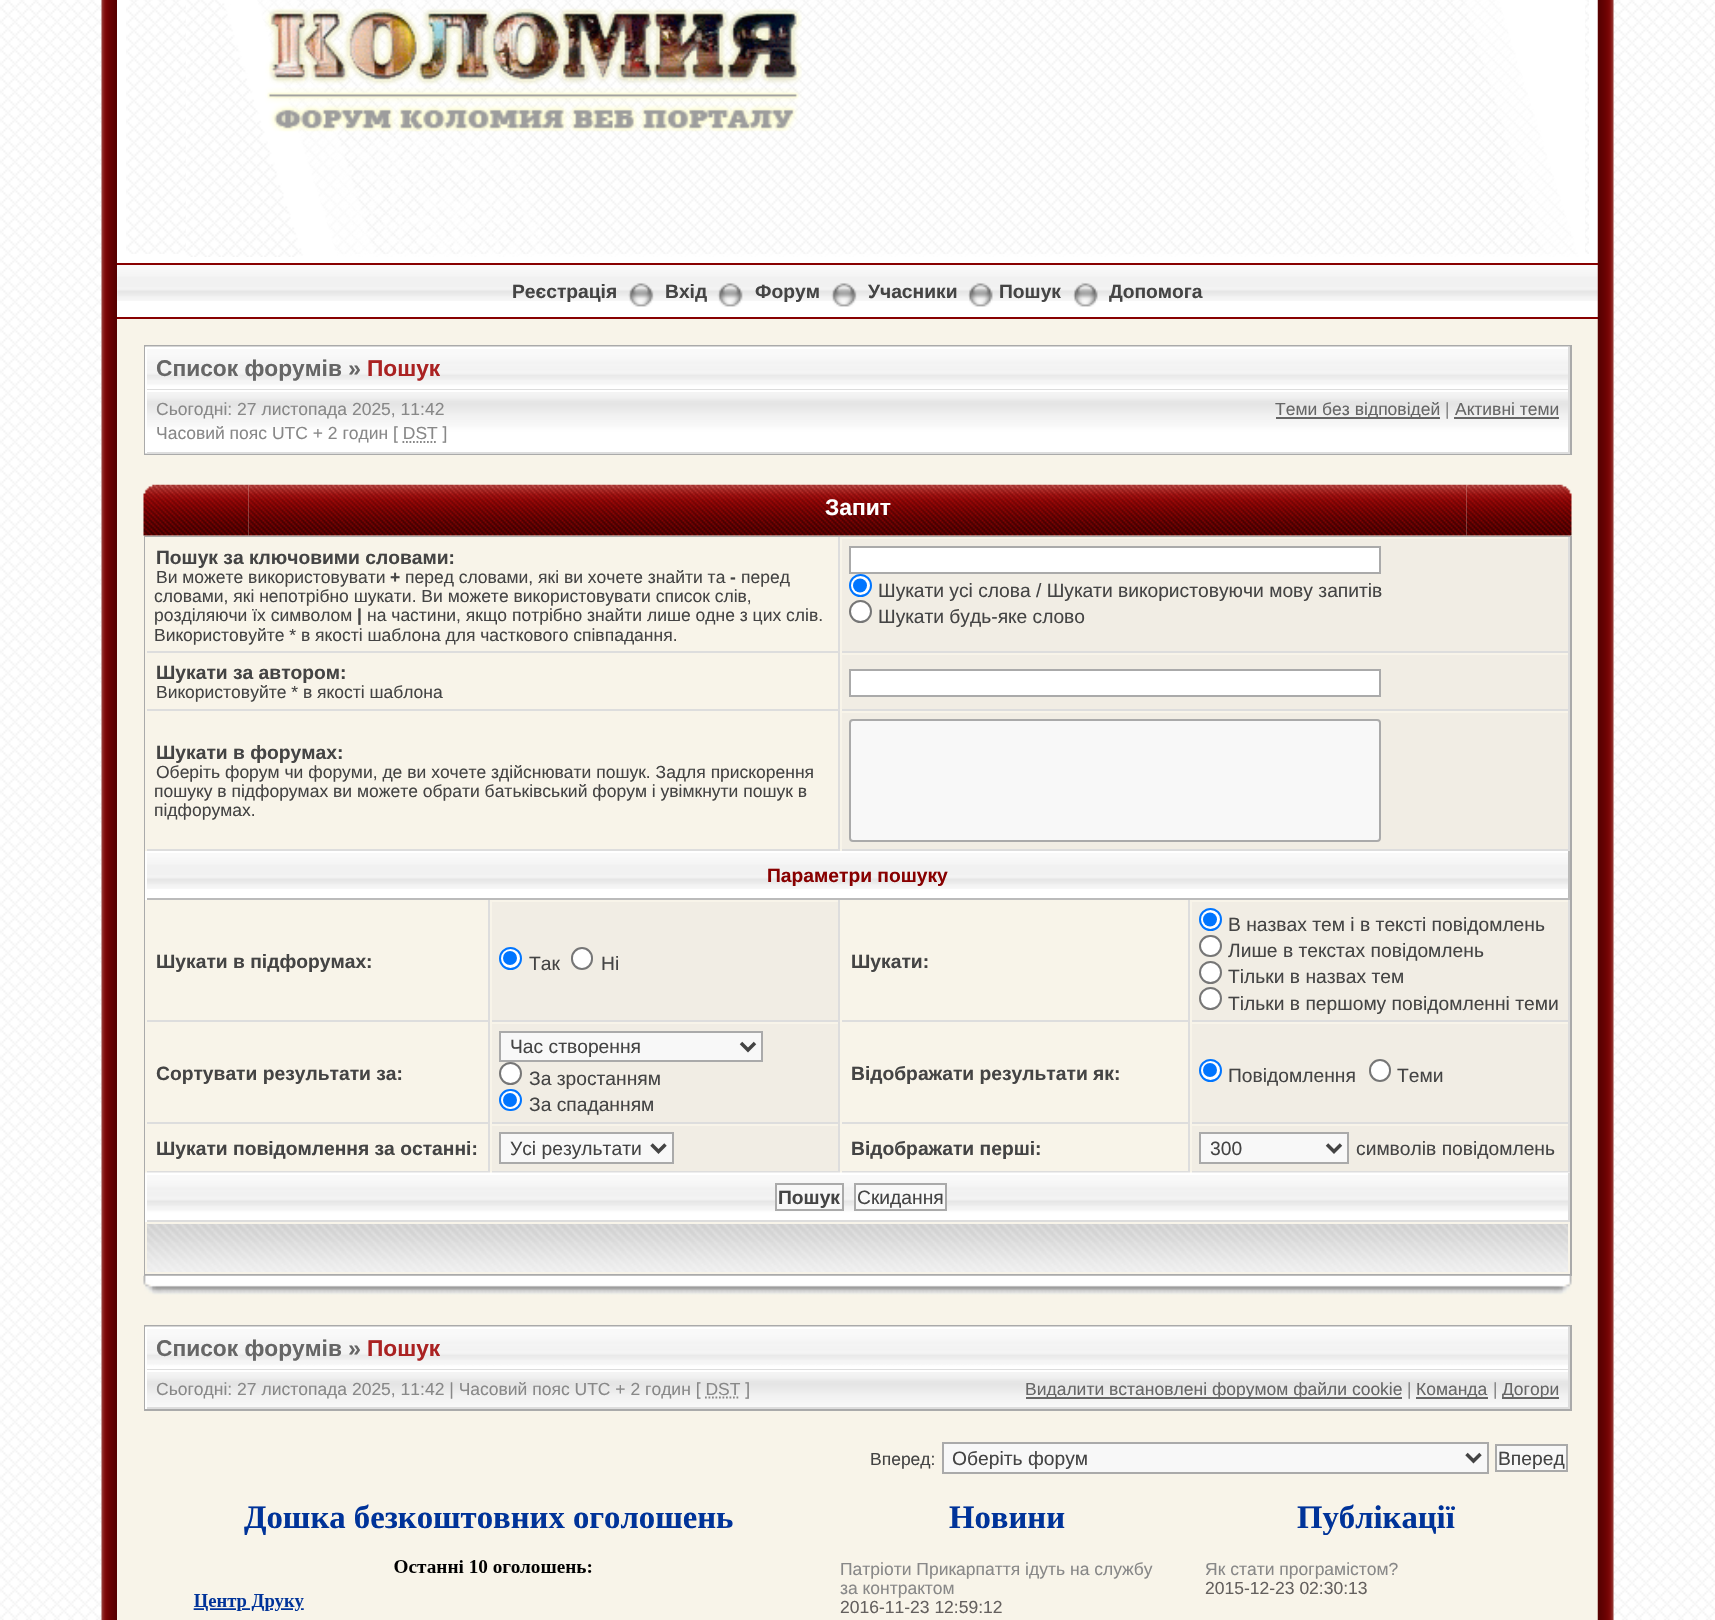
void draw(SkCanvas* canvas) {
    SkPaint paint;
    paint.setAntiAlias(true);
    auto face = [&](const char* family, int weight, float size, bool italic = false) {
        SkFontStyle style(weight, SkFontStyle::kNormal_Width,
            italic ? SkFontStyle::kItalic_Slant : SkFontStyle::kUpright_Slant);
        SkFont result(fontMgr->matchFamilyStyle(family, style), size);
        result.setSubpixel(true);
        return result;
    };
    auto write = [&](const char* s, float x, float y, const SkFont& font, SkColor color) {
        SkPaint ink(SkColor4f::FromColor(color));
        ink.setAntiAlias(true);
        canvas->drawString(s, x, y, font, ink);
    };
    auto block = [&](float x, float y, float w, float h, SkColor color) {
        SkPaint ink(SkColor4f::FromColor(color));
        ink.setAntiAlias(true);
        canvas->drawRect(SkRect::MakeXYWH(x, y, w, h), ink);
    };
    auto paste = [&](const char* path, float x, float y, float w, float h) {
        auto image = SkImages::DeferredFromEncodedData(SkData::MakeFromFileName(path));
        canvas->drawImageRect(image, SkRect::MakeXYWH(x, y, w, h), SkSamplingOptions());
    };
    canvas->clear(SK_ColorWHITE);
    paste("pic1.png", 0, 0, 1715, 1620);
    paste("pic2.png", 101, 0, 16, 1620);
    block(117, 319, 1481, 1301, SkColorSetRGB(248, 244, 233));
    paste("pic3.png", 126, 0, 1463, 254);
    paint.setStyle(SkPaint::kStroke_Style);
    paint.setStrokeWidth(9);
    paint.setColor(SK_ColorWHITE);
    canvas->drawRect(SkRect::MakeXYWH(121.5f, -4.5f, 1472, 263), paint);
    paste("pic4.png", 186, 0, 1399, 257);
    paste("pic5.png", 265, 8, 537, 124);
    block(117, 265, 1481, 52, SK_ColorWHITE);
    paste("pic6.png", 117, 265, 1481, 36);
    block(117, 263, 1481, 2, SkColorSetRGB(136, 0, 0));
    block(117, 317, 1481, 2, SkColorSetRGB(136, 0, 0));
    auto kFont1 = face("Liberation Sans", 700, 19.25f);
    write("Реєстрація", 512, 298, kFont1, SkColorSetRGB(68, 68, 68));
    paste("pic7.png", 628, 283, 26, 24);
    write("Вхід", 665, 298, kFont1, SkColorSetRGB(68, 68, 68));
    paste("pic8.png", 717, 283, 26, 24);
    write("Форум", 755, 298, kFont1, SkColorSetRGB(68, 68, 68));
    paste("pic7.png", 831, 283, 26, 24);
    write("Учасники", 868, 298, kFont1, SkColorSetRGB(68, 68, 68));
    paste("pic9.png", 968, 282, 25, 25);
    write("Пошук", 999, 298, kFont1, SkColorSetRGB(68, 68, 68));
    paste("pic10.png", 1073, 282, 25, 25);
    write("Допомога", 1109, 298, kFont1, SkColorSetRGB(68, 68, 68));
    paint.setStrokeWidth(2);
    paint.setColor(SkColorSetRGB(170, 170, 170));
    canvas->drawRect(SkRect::MakeXYWH(145, 346, 1426, 108), paint);
    paste("pic11.png", 145, 346, 1425, 43);
    block(145, 347, 1425, 2, SK_ColorWHITE);
    block(1568, 347, 2, 106, SkColorSetRGB(221, 221, 221));
    block(145, 389, 1425, 1, SkColorSetRGB(221, 221, 221));
    block(145, 347, 2, 43, SK_ColorWHITE);
    auto kFont2 = face("Liberation Sans", 700, 22.75f);
    write("Список форумів »", 156, 376, kFont2, SkColorSetRGB(102, 102, 102));
    write("Пошук", 367, 376, kFont2, SkColorSetRGB(170, 34, 34));
    block(147, 390, 1421, 2, SK_ColorWHITE);
    paste("pic12.png", 147, 392, 1421, 60);
    block(145, 452, 1425, 2, SkColorSetRGB(221, 221, 221));
    block(145, 390, 2, 63, SK_ColorWHITE);
    auto kFont3 = face("Liberation Sans", 400, 17.5f);
    write("Сьогодні: 27 листопада 2025, 11:42", 156, 415, kFont3, SkColorSetRGB(136, 136, 136));
    write("Часовий пояс UTC + 2 годин [ DST ]", 156, 439, kFont3, SkColorSetRGB(136, 136, 136));
    paint.setStrokeWidth(1.8f);
    paint.setColor(SkColorSetRGB(136, 136, 136));
    paint.setPathEffect(SkDashPathEffect::Make({{1.75f, 1.75f}}, 0));
    canvas->drawPath(SkPathBuilder().moveTo(402.5f, 442).lineTo(437.5f, 442).detach(), paint);
    paint.setPathEffect(nullptr);
    block(1276, 417, 164, 2, SkColorSetRGB(102, 102, 102));
    write("Теми без відповідей", 1275, 415, kFont3, SkColorSetRGB(102, 102, 102));
    write("|", 1445, 415, kFont3, SkColorSetRGB(136, 136, 136));
    write("Активні теми", 1455, 415, kFont3, SkColorSetRGB(102, 102, 102));
    block(1454, 417, 105, 2, SkColorSetRGB(102, 102, 102));
    paste("pic13.png", 143, 484, 106, 52);
    paste("pic14.png", 1466, 484, 106, 52);
    paste("pic15.png", 248, 484, 1219, 52);
    write("Запит", 825, 515, kFont2, SK_ColorWHITE);
    block(492, 655, 1076, 516, SkColorSetRGB(241, 237, 228));
    paint.setStrokeWidth(2);
    paint.setColor(SkColorSetRGB(170, 170, 170));
    canvas->drawRect(SkRect::MakeXYWH(145, 537, 1426, 738), paint);
    block(147, 537, 691, 1, SkColorSetRGB(248, 244, 233));
    block(838, 537, 2, 314, SkColorSetRGB(221, 221, 221));
    block(145, 651, 695, 2, SkColorSetRGB(221, 221, 221));
    block(145, 537, 2, 116, SkColorSetRGB(248, 244, 233));
    write("Пошук за ключовими словами:", 156, 564, kFont1, SkColorSetRGB(68, 68, 68));
    write("Ви можете використовувати", 156, 583, kFont3, SkColorSetRGB(68, 68, 68));
    auto kFont4 = face("Liberation Sans", 700, 17.5f);
    write("+", 390, 583, kFont4, SkColorSetRGB(68, 68, 68));
    write("перед словами, які ви хочете знайти та", 405, 583, kFont3, SkColorSetRGB(68, 68, 68));
    write("-", 730, 583, kFont4, SkColorSetRGB(68, 68, 68));
    write("перед", 741, 583, kFont3, SkColorSetRGB(68, 68, 68));
    write("словами, які непотрібно шукати. Ви можете використовувати список слів,", 154, 602, kFont3, SkColorSetRGB(68, 68, 68));
    write("розділяючи їх символом", 154, 621, kFont3, SkColorSetRGB(68, 68, 68));
    write("|", 357, 621, kFont4, SkColorSetRGB(68, 68, 68));
    write("на частини, якщо потрібно знайти лише одне з цих слів.", 367, 621, kFont3, SkColorSetRGB(68, 68, 68));
    write("Використовуйте * в якості шаблона для часткового співпадання.", 154, 641, kFont3, SkColorSetRGB(68, 68, 68));
    block(842, 539, 726, 112, SkColorSetRGB(241, 237, 228));
    block(840, 537, 730, 1, SkColorSetRGB(248, 244, 233));
    block(1568, 537, 2, 174, SkColorSetRGB(221, 221, 221));
    block(840, 651, 730, 2, SkColorSetRGB(221, 221, 221));
    block(840, 651, 2, 2, SkColorSetRGB(248, 244, 233));
    paint.setStyle(SkPaint::kFill_Style);
    paint.setColor(SK_ColorWHITE);
    canvas->drawRect(SkRect::MakeXYWH(850, 547, 530, 26), paint);
    paint.setStyle(SkPaint::kStroke_Style);
    paint.setColor(SkColorSetRGB(170, 170, 170));
    canvas->drawRect(SkRect::MakeXYWH(850, 547, 530, 26), paint);
    paint.setStyle(SkPaint::kFill_Style);
    paint.setColor(SK_ColorWHITE);
    canvas->drawCircle(860.5f, 585.5f, 10.5f, paint);
    paint.setStyle(SkPaint::kStroke_Style);
    paint.setColor(SkColorSetRGB(0, 117, 255));
    canvas->drawCircle(860.5f, 585.5f, 10.5f, paint);
    paint.setStyle(SkPaint::kFill_Style);
    canvas->drawCircle(860, 585.5f, 7, paint);
    auto kFont5 = face("Liberation Sans", 400, 19.25f);
    write("Шукати усі слова / Шукати використовуючи мову запитів", 878, 597, kFont5, SkColorSetRGB(68, 68, 68));
    paint.setColor(SK_ColorWHITE);
    canvas->drawCircle(860.5f, 611.5f, 10.5f, paint);
    paint.setStyle(SkPaint::kStroke_Style);
    paint.setColor(SkColorSetRGB(118, 118, 118));
    canvas->drawCircle(860.5f, 611.5f, 10.5f, paint);
    write("Шукати будь-яке слово", 878, 623, kFont5, SkColorSetRGB(68, 68, 68));
    block(492, 655, 346, 54, SkColorSetRGB(248, 244, 233));
    block(145, 709, 1425, 2, SkColorSetRGB(221, 221, 221));
    block(145, 653, 2, 58, SkColorSetRGB(248, 244, 233));
    write("Шукати за автором:", 156, 679, kFont1, SkColorSetRGB(68, 68, 68));
    write("Використовуйте * в якості шаблона", 156, 698, kFont3, SkColorSetRGB(68, 68, 68));
    block(840, 653, 2, 58, SkColorSetRGB(248, 244, 233));
    paint.setStyle(SkPaint::kFill_Style);
    paint.setColor(SK_ColorWHITE);
    canvas->drawRect(SkRect::MakeXYWH(850, 670, 530, 26), paint);
    paint.setStyle(SkPaint::kStroke_Style);
    paint.setColor(SkColorSetRGB(170, 170, 170));
    canvas->drawRect(SkRect::MakeXYWH(850, 670, 530, 26), paint);
    block(492, 711, 346, 138, SkColorSetRGB(248, 244, 233));
    block(145, 849, 695, 2, SkColorSetRGB(221, 221, 221));
    block(145, 711, 2, 140, SkColorSetRGB(248, 244, 233));
    write("Шукати в форумах:", 156, 759, kFont1, SkColorSetRGB(68, 68, 68));
    write("Оберіть форум чи форуми, де ви хочете здійснювати пошук. Задля прискорення", 156, 778, kFont3, SkColorSetRGB(68, 68, 68));
    write("пошуку в підфорумах ви можете обрати батьківський форум і увімкнути пошук в", 154, 797, kFont3, SkColorSetRGB(68, 68, 68));
    write("підфорумах.", 154, 816, kFont3, SkColorSetRGB(68, 68, 68));
    block(840, 711, 730, 2, SkColorSetRGB(248, 244, 233));
    block(1568, 711, 2, 140, SkColorSetRGB(221, 221, 221));
    block(840, 849, 730, 2, SkColorSetRGB(221, 221, 221));
    block(840, 711, 2, 140, SkColorSetRGB(248, 244, 233));
    paint.setStyle(SkPaint::kFill_Style);
    paint.setColor(SkColorSetRGB(248, 248, 248));
    canvas->drawRoundRect(SkRect::MakeXYWH(850, 720, 530, 121), 3, 3, paint);
    paint.setStyle(SkPaint::kStroke_Style);
    paint.setColor(SkColorSetRGB(170, 170, 170));
    canvas->drawRoundRect(SkRect::MakeXYWH(850, 720, 530, 121), 3, 3, paint);
    block(147, 889, 1421, 9, SK_ColorWHITE);
    paste("pic16.png", 147, 853, 1421, 36);
    block(145, 851, 1425, 2, SK_ColorWHITE);
    block(1568, 851, 2, 49, SkColorSetRGB(187, 187, 187));
    block(145, 898, 1425, 2, SkColorSetRGB(187, 187, 187));
    block(145, 851, 2, 49, SK_ColorWHITE);
    write("Параметри пошуку", 767, 882, kFont1, SkColorSetRGB(136, 0, 0));
    block(488, 900, 2, 273, SkColorSetRGB(221, 221, 221));
    block(145, 1020, 345, 2, SkColorSetRGB(221, 221, 221));
    block(145, 900, 2, 122, SkColorSetRGB(248, 244, 233));
    write("Шукати в підфорумах:", 156, 968, kFont1, SkColorSetRGB(68, 68, 68));
    block(490, 900, 350, 2, SkColorSetRGB(248, 244, 233));
    block(838, 900, 2, 122, SkColorSetRGB(221, 221, 221));
    block(490, 1020, 350, 2, SkColorSetRGB(221, 221, 221));
    block(490, 1020, 2, 2, SkColorSetRGB(248, 244, 233));
    paint.setStyle(SkPaint::kFill_Style);
    paint.setColor(SK_ColorWHITE);
    canvas->drawCircle(510.5f, 958.5f, 10.5f, paint);
    paint.setStyle(SkPaint::kStroke_Style);
    paint.setColor(SkColorSetRGB(0, 117, 255));
    canvas->drawCircle(510.5f, 958.5f, 10.5f, paint);
    paint.setStyle(SkPaint::kFill_Style);
    canvas->drawCircle(510, 958, 7, paint);
    write("Так", 529, 970, kFont5, SkColorSetRGB(68, 68, 68));
    paint.setColor(SK_ColorWHITE);
    canvas->drawRoundRect(SkRect::MakeXYWH(572, 948, 20, 21), 10, 10, paint);
    paint.setStyle(SkPaint::kStroke_Style);
    paint.setColor(SkColorSetRGB(118, 118, 118));
    canvas->drawRoundRect(SkRect::MakeXYWH(572, 948, 20, 21), 10, 10, paint);
    write("Ні", 601, 970, kFont5, SkColorSetRGB(68, 68, 68));
    block(842, 900, 346, 120, SkColorSetRGB(248, 244, 233));
    block(1188, 900, 2, 273, SkColorSetRGB(221, 221, 221));
    block(840, 1020, 350, 2, SkColorSetRGB(221, 221, 221));
    block(840, 900, 2, 122, SkColorSetRGB(248, 244, 233));
    write("Шукати:", 851, 968, kFont1, SkColorSetRGB(68, 68, 68));
    block(1190, 900, 380, 2, SkColorSetRGB(248, 244, 233));
    block(1568, 900, 2, 122, SkColorSetRGB(221, 221, 221));
    block(1190, 1020, 380, 2, SkColorSetRGB(221, 221, 221));
    block(1190, 900, 2, 122, SkColorSetRGB(248, 244, 233));
    paint.setStyle(SkPaint::kFill_Style);
    paint.setColor(SK_ColorWHITE);
    canvas->drawCircle(1210.5f, 919.5f, 10.5f, paint);
    paint.setStyle(SkPaint::kStroke_Style);
    paint.setColor(SkColorSetRGB(0, 117, 255));
    canvas->drawCircle(1210.5f, 919.5f, 10.5f, paint);
    paint.setStyle(SkPaint::kFill_Style);
    canvas->drawCircle(1210, 919.5f, 7, paint);
    write("В назвах тем і в тексті повідомлень", 1228, 931, kFont5, SkColorSetRGB(68, 68, 68));
    paint.setColor(SK_ColorWHITE);
    canvas->drawRoundRect(SkRect::MakeXYWH(1200, 936, 21, 20), 10, 10, paint);
    paint.setStyle(SkPaint::kStroke_Style);
    paint.setColor(SkColorSetRGB(118, 118, 118));
    canvas->drawRoundRect(SkRect::MakeXYWH(1200, 936, 21, 20), 10, 10, paint);
    write("Лише в текстах повідомлень", 1228, 957, kFont5, SkColorSetRGB(68, 68, 68));
    paint.setStyle(SkPaint::kFill_Style);
    paint.setColor(SK_ColorWHITE);
    canvas->drawCircle(1210.5f, 972.5f, 10.5f, paint);
    paint.setStyle(SkPaint::kStroke_Style);
    paint.setColor(SkColorSetRGB(118, 118, 118));
    canvas->drawCircle(1210.5f, 972.5f, 10.5f, paint);
    write("Тільки в назвах тем", 1228, 983, kFont5, SkColorSetRGB(68, 68, 68));
    paint.setStyle(SkPaint::kFill_Style);
    paint.setColor(SK_ColorWHITE);
    canvas->drawCircle(1210.5f, 998.5f, 10.5f, paint);
    paint.setStyle(SkPaint::kStroke_Style);
    paint.setColor(SkColorSetRGB(118, 118, 118));
    canvas->drawCircle(1210.5f, 998.5f, 10.5f, paint);
    write("Тільки в першому повідомленні теми", 1228, 1010, kFont5, SkColorSetRGB(68, 68, 68));
    block(145, 1122, 345, 2, SkColorSetRGB(221, 221, 221));
    block(145, 1022, 2, 102, SkColorSetRGB(248, 244, 233));
    write("Сортувати результати за:", 156, 1080, kFont1, SkColorSetRGB(68, 68, 68));
    block(490, 1022, 350, 2, SkColorSetRGB(248, 244, 233));
    block(838, 1022, 2, 102, SkColorSetRGB(221, 221, 221));
    block(490, 1122, 700, 2, SkColorSetRGB(221, 221, 221));
    block(490, 1122, 2, 2, SkColorSetRGB(248, 244, 233));
    paint.setStyle(SkPaint::kFill_Style);
    paint.setColor(SkColorSetRGB(248, 248, 248));
    canvas->drawRect(SkRect::MakeXYWH(500, 1032, 262, 29), paint);
    paint.setStyle(SkPaint::kStroke_Style);
    paint.setColor(SkColorSetRGB(170, 170, 170));
    canvas->drawRect(SkRect::MakeXYWH(500, 1032, 262, 29), paint);
    paint.setStrokeWidth(3.5f);
    paint.setColor(SkColorSetRGB(68, 68, 68));
    canvas->drawPath(SkPathBuilder().moveTo(741, 1043).lineTo(748, 1050).lineTo(755, 1043).detach(), paint);
    write("Час створення", 510, 1053, kFont5, SkColorSetRGB(68, 68, 68));
    paint.setStyle(SkPaint::kFill_Style);
    paint.setColor(SK_ColorWHITE);
    canvas->drawCircle(510.5f, 1073.5f, 10.5f, paint);
    paint.setStyle(SkPaint::kStroke_Style);
    paint.setStrokeWidth(2);
    paint.setColor(SkColorSetRGB(118, 118, 118));
    canvas->drawCircle(510.5f, 1073.5f, 10.5f, paint);
    write("За зростанням", 529, 1085, kFont5, SkColorSetRGB(68, 68, 68));
    paint.setStyle(SkPaint::kFill_Style);
    paint.setColor(SK_ColorWHITE);
    canvas->drawRoundRect(SkRect::MakeXYWH(500, 1090, 21, 20), 10, 10, paint);
    paint.setStyle(SkPaint::kStroke_Style);
    paint.setColor(SkColorSetRGB(0, 117, 255));
    canvas->drawRoundRect(SkRect::MakeXYWH(500, 1090, 21, 20), 10, 10, paint);
    paint.setStyle(SkPaint::kFill_Style);
    canvas->drawCircle(510, 1100, 7, paint);
    write("За спаданням", 529, 1111, kFont5, SkColorSetRGB(68, 68, 68));
    block(842, 1022, 346, 100, SkColorSetRGB(248, 244, 233));
    block(840, 1022, 2, 102, SkColorSetRGB(248, 244, 233));
    write("Відображати результати як:", 851, 1080, kFont1, SkColorSetRGB(68, 68, 68));
    block(1190, 1022, 380, 2, SkColorSetRGB(248, 244, 233));
    block(1568, 1022, 2, 102, SkColorSetRGB(221, 221, 221));
    block(1190, 1122, 380, 2, SkColorSetRGB(221, 221, 221));
    block(1190, 1022, 2, 102, SkColorSetRGB(248, 244, 233));
    paint.setColor(SK_ColorWHITE);
    canvas->drawCircle(1210.5f, 1070.5f, 10.5f, paint);
    paint.setStyle(SkPaint::kStroke_Style);
    paint.setColor(SkColorSetRGB(0, 117, 255));
    canvas->drawCircle(1210.5f, 1070.5f, 10.5f, paint);
    paint.setStyle(SkPaint::kFill_Style);
    canvas->drawCircle(1210, 1070, 7, paint);
    write("Повідомлення", 1228, 1082, kFont5, SkColorSetRGB(68, 68, 68));
    paint.setColor(SK_ColorWHITE);
    canvas->drawRoundRect(SkRect::MakeXYWH(1370, 1060, 20, 21), 10, 10, paint);
    paint.setStyle(SkPaint::kStroke_Style);
    paint.setColor(SkColorSetRGB(118, 118, 118));
    canvas->drawRoundRect(SkRect::MakeXYWH(1370, 1060, 20, 21), 10, 10, paint);
    write("Теми", 1397, 1082, kFont5, SkColorSetRGB(68, 68, 68));
    block(145, 1171, 345, 2, SkColorSetRGB(221, 221, 221));
    block(145, 1124, 2, 49, SkColorSetRGB(248, 244, 233));
    write("Шукати повідомлення за останні:", 156, 1155, kFont1, SkColorSetRGB(68, 68, 68));
    block(490, 1124, 350, 2, SkColorSetRGB(248, 244, 233));
    block(838, 1124, 2, 49, SkColorSetRGB(221, 221, 221));
    block(490, 1171, 700, 2, SkColorSetRGB(221, 221, 221));
    block(490, 1171, 2, 2, SkColorSetRGB(248, 244, 233));
    paint.setStyle(SkPaint::kFill_Style);
    paint.setColor(SkColorSetRGB(248, 248, 248));
    canvas->drawRect(SkRect::MakeXYWH(500, 1133, 173, 30), paint);
    paint.setStyle(SkPaint::kStroke_Style);
    paint.setColor(SkColorSetRGB(170, 170, 170));
    canvas->drawRect(SkRect::MakeXYWH(500, 1133, 173, 30), paint);
    paint.setStrokeWidth(3.5f);
    paint.setColor(SkColorSetRGB(68, 68, 68));
    canvas->drawPath(SkPathBuilder().moveTo(651.5f, 1144.5f).lineTo(658.5f, 1151.5f).lineTo(665.5f, 1144.5f).detach(), paint);
    write("Усі результати", 510, 1155, kFont5, SkColorSetRGB(68, 68, 68));
    block(842, 1124, 346, 47, SkColorSetRGB(248, 244, 233));
    block(840, 1124, 2, 49, SkColorSetRGB(248, 244, 233));
    write("Відображати перші:", 851, 1155, kFont1, SkColorSetRGB(68, 68, 68));
    block(1190, 1124, 380, 2, SkColorSetRGB(248, 244, 233));
    block(1568, 1124, 2, 49, SkColorSetRGB(221, 221, 221));
    block(1190, 1171, 380, 2, SkColorSetRGB(221, 221, 221));
    block(1190, 1124, 2, 49, SkColorSetRGB(248, 244, 233));
    paint.setStyle(SkPaint::kFill_Style);
    paint.setColor(SkColorSetRGB(248, 248, 248));
    canvas->drawRect(SkRect::MakeXYWH(1200, 1133, 148, 30), paint);
    paint.setStyle(SkPaint::kStroke_Style);
    paint.setStrokeWidth(2);
    paint.setColor(SkColorSetRGB(170, 170, 170));
    canvas->drawRect(SkRect::MakeXYWH(1200, 1133, 148, 30), paint);
    paint.setStrokeWidth(3.5f);
    paint.setColor(SkColorSetRGB(68, 68, 68));
    canvas->drawPath(SkPathBuilder().moveTo(1327, 1144.5f).lineTo(1334, 1151.5f).lineTo(1341, 1144.5f).detach(), paint);
    write("300", 1210, 1155, kFont5, SkColorSetRGB(68, 68, 68));
    write("символів повідомлень", 1356, 1155, kFont5, SkColorSetRGB(68, 68, 68));
    paste("pic17.png", 145, 1172, 1425, 48);
    block(145, 1173, 1425, 2, SK_ColorWHITE);
    block(1568, 1173, 2, 49, SkColorSetRGB(221, 221, 221));
    block(145, 1220, 1425, 2, SkColorSetRGB(221, 221, 221));
    block(145, 1173, 2, 49, SK_ColorWHITE);
    paint.setStyle(SkPaint::kFill_Style);
    paint.setColor(SkColorSetRGB(248, 248, 248));
    canvas->drawRect(SkRect::MakeXYWH(776, 1184, 67, 26), paint);
    paint.setStyle(SkPaint::kStroke_Style);
    paint.setStrokeWidth(2);
    paint.setColor(SkColorSetRGB(170, 170, 170));
    canvas->drawRect(SkRect::MakeXYWH(776, 1184, 67, 26), paint);
    write("Пошук", 778, 1204, kFont1, SkColorSetRGB(68, 68, 68));
    paint.setStyle(SkPaint::kFill_Style);
    paint.setColor(SkColorSetRGB(248, 248, 248));
    canvas->drawRect(SkRect::MakeXYWH(855, 1184, 91, 26), paint);
    paint.setStyle(SkPaint::kStroke_Style);
    paint.setColor(SkColorSetRGB(170, 170, 170));
    canvas->drawRect(SkRect::MakeXYWH(855, 1184, 91, 26), paint);
    write("Скидання", 857, 1204, kFont5, SkColorSetRGB(68, 68, 68));
    paste("pic18.png", 147, 1224, 1421, 48);
    paint.setColor(SkColorSetRGB(248, 244, 233));
    canvas->drawRect(SkRect::MakeXYWH(146, 1223, 1423, 50), paint);
    paste("pic19.png", 143, 1275, 18, 20);
    paste("pic20.png", 1554, 1275, 18, 20);
    paste("pic21.png", 161, 1275, 1393, 20);
    paint.setColor(SkColorSetRGB(170, 170, 170));
    canvas->drawRect(SkRect::MakeXYWH(145, 1326, 1426, 84), paint);
    paste("pic22.png", 145, 1326, 1425, 43);
    block(145, 1327, 1425, 2, SK_ColorWHITE);
    block(1568, 1327, 2, 82, SkColorSetRGB(221, 221, 221));
    block(145, 1369, 1425, 1, SkColorSetRGB(221, 221, 221));
    block(145, 1327, 2, 43, SK_ColorWHITE);
    write("Список форумів »", 156, 1356, kFont2, SkColorSetRGB(102, 102, 102));
    write("Пошук", 367, 1356, kFont2, SkColorSetRGB(170, 34, 34));
    block(147, 1370, 1421, 2, SK_ColorWHITE);
    paste("pic23.png", 147, 1372, 1421, 35);
    block(145, 1407, 1425, 2, SkColorSetRGB(221, 221, 221));
    block(145, 1370, 2, 39, SK_ColorWHITE);
    write("Сьогодні: 27 листопада 2025, 11:42 | Часовий пояс UTC + 2 годин [ DST ]", 156, 1395, kFont3, SkColorSetRGB(136, 136, 136));
    paint.setStrokeWidth(1.8f);
    paint.setColor(SkColorSetRGB(136, 136, 136));
    paint.setPathEffect(SkDashPathEffect::Make({{1.75f, 1.75f}}, 0));
    canvas->drawPath(SkPathBuilder().moveTo(705, 1397.5f).lineTo(740, 1397.5f).detach(), paint);
    paint.setPathEffect(nullptr);
    block(1026, 1397, 376, 2, SkColorSetRGB(102, 102, 102));
    write("Видалити встановлені форумом файли cookie", 1025, 1395, kFont3, SkColorSetRGB(102, 102, 102));
    write("|", 1407, 1395, kFont3, SkColorSetRGB(136, 136, 136));
    block(1416, 1397, 72, 2, SkColorSetRGB(102, 102, 102));
    write("Команда", 1416, 1395, kFont3, SkColorSetRGB(102, 102, 102));
    write("|", 1493, 1395, kFont3, SkColorSetRGB(136, 136, 136));
    block(1502, 1397, 57, 2, SkColorSetRGB(102, 102, 102));
    write("Догори", 1502, 1395, kFont3, SkColorSetRGB(102, 102, 102));
    write("Вперед:", 870, 1465, kFont3, SkColorSetRGB(68, 68, 68));
    paint.setStyle(SkPaint::kFill_Style);
    paint.setColor(SkColorSetRGB(248, 248, 248));
    canvas->drawRect(SkRect::MakeXYWH(943, 1443, 545, 30), paint);
    paint.setStyle(SkPaint::kStroke_Style);
    paint.setStrokeWidth(2);
    paint.setColor(SkColorSetRGB(170, 170, 170));
    canvas->drawRect(SkRect::MakeXYWH(943, 1443, 545, 30), paint);
    paint.setStrokeWidth(3.5f);
    paint.setColor(SkColorSetRGB(68, 68, 68));
    canvas->drawPath(SkPathBuilder().moveTo(1466.5f, 1454).lineTo(1473.5f, 1461).lineTo(1480.5f, 1454).detach(), paint);
    write("Оберіть форум", 952, 1465, kFont5, SkColorSetRGB(68, 68, 68));
    paint.setStyle(SkPaint::kFill_Style);
    paint.setColor(SkColorSetRGB(248, 248, 248));
    canvas->drawRect(SkRect::MakeXYWH(1496, 1445, 71, 26), paint);
    paint.setStyle(SkPaint::kStroke_Style);
    paint.setStrokeWidth(2);
    paint.setColor(SkColorSetRGB(170, 170, 170));
    canvas->drawRect(SkRect::MakeXYWH(1496, 1445, 71, 26), paint);
    write("Вперед", 1498, 1465, kFont5, SkColorSetRGB(68, 68, 68));
    auto kFont6 = face("Liberation Serif", 700, 32.7f);
    write("Дошка безкоштовних оголошень", 244, 1528, kFont6, SkColorSetRGB(0, 51, 153));
    paste("pic24.png", 193, 1560, 399, 51);
    write("Новини", 949, 1528, kFont6, SkColorSetRGB(0, 51, 153));
    write("Патріоти Прикарпаття ідуть на службу", 840, 1575, kFont3, SkColorSetRGB(136, 136, 136));
    write("за контрактом", 840, 1594, kFont3, SkColorSetRGB(136, 136, 136));
    write("2016-11-23 12:59:12", 840, 1613, kFont3, SkColorSetRGB(100, 96, 94));
    write("Публікації", 1297, 1528, kFont6, SkColorSetRGB(0, 51, 153));
    write("Як стати програмістом?", 1205, 1575, kFont3, SkColorSetRGB(136, 136, 136));
    write("2015-12-23 02:30:13", 1205, 1594, kFont3, SkColorSetRGB(100, 96, 94));
    paste("pic25.png", 1597, 0, 17, 1620);
}
